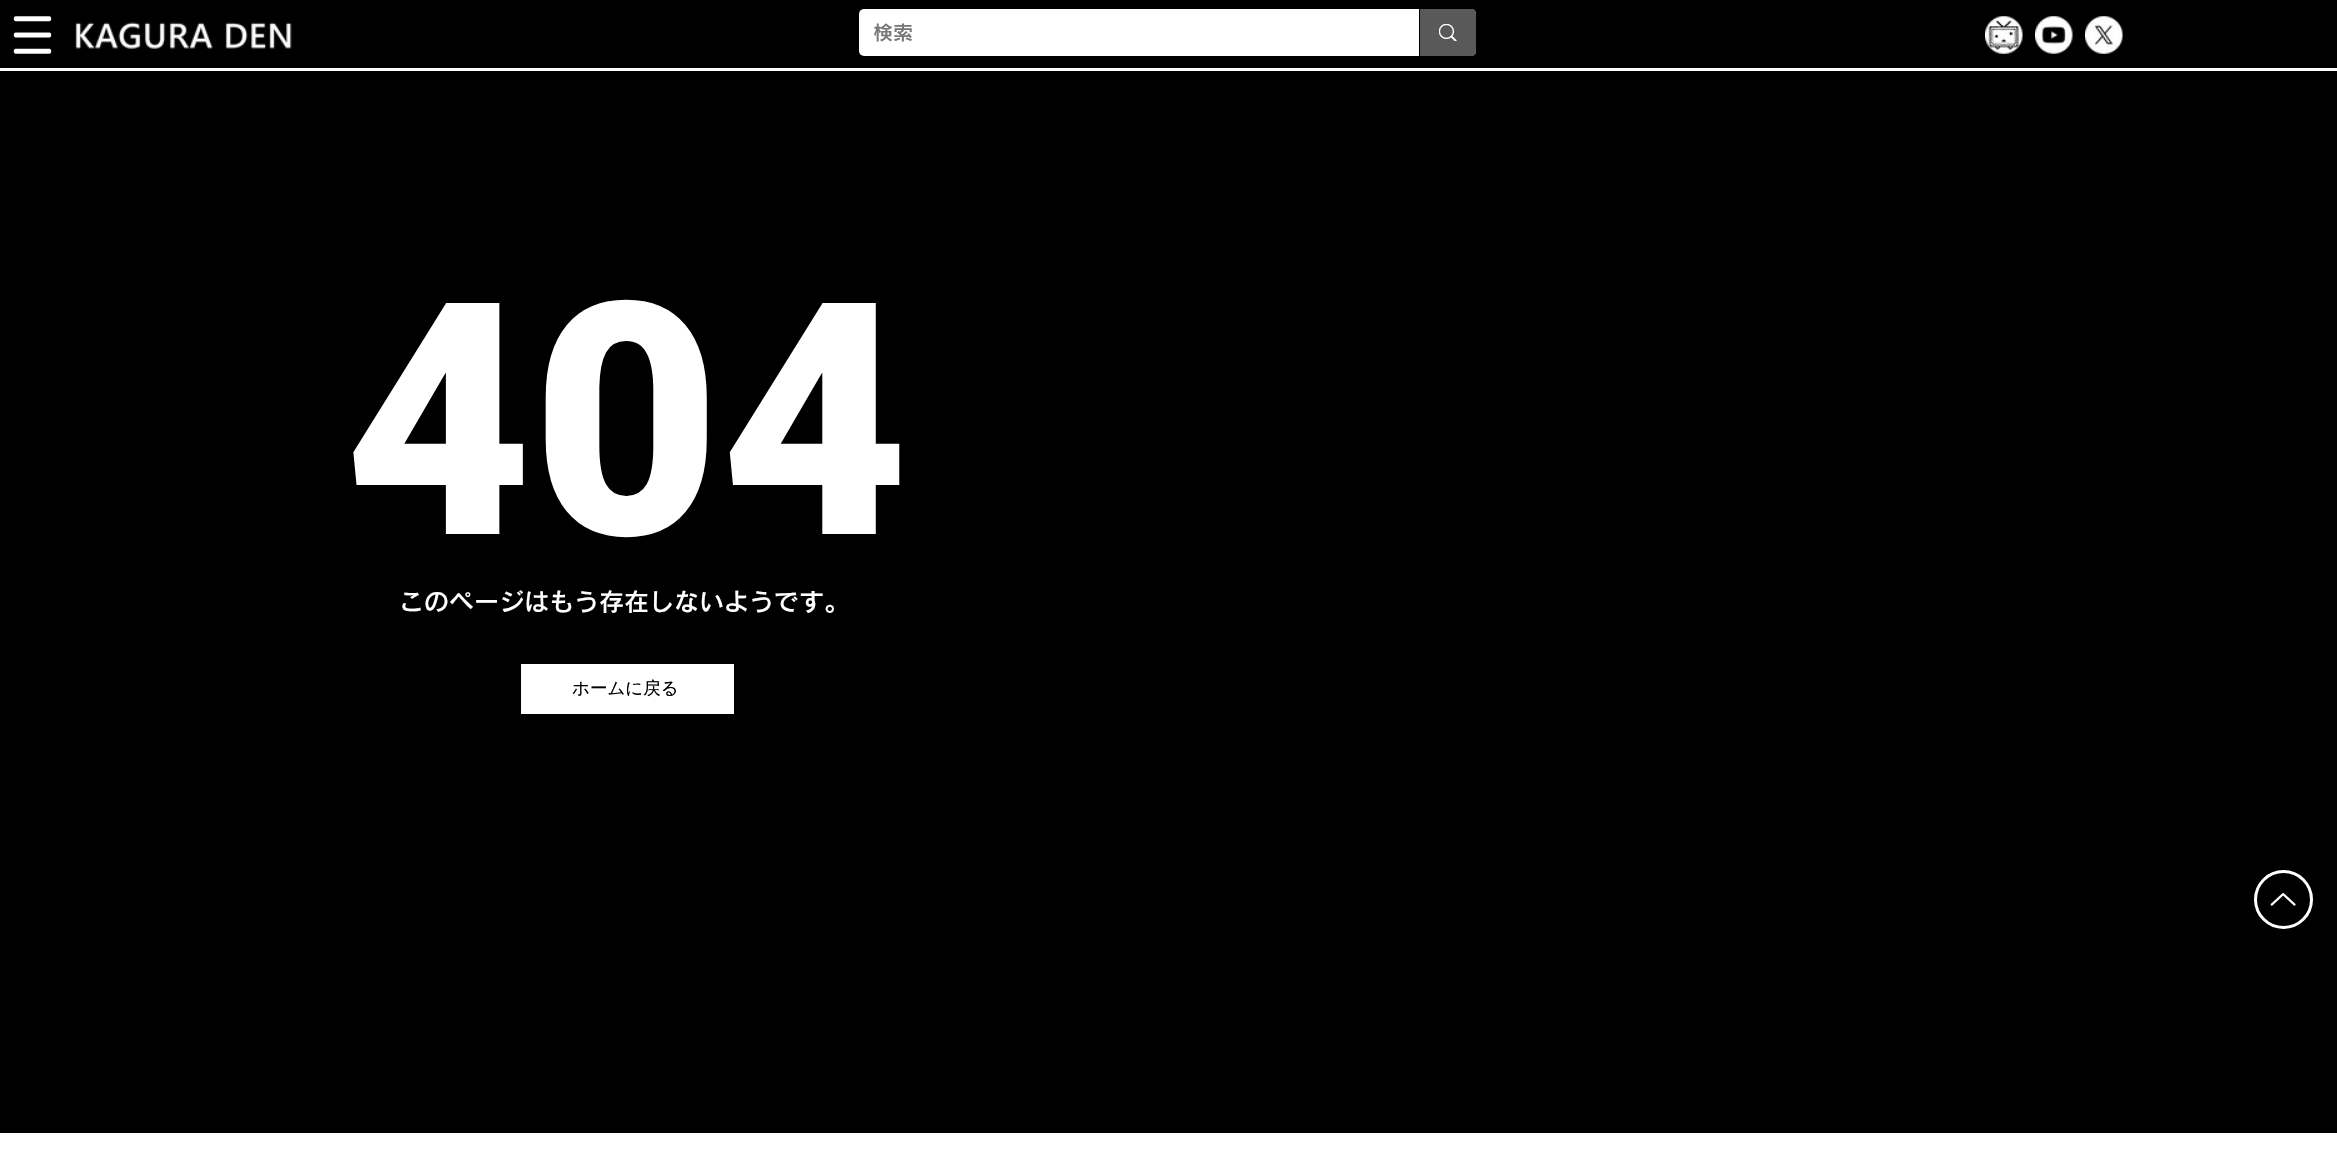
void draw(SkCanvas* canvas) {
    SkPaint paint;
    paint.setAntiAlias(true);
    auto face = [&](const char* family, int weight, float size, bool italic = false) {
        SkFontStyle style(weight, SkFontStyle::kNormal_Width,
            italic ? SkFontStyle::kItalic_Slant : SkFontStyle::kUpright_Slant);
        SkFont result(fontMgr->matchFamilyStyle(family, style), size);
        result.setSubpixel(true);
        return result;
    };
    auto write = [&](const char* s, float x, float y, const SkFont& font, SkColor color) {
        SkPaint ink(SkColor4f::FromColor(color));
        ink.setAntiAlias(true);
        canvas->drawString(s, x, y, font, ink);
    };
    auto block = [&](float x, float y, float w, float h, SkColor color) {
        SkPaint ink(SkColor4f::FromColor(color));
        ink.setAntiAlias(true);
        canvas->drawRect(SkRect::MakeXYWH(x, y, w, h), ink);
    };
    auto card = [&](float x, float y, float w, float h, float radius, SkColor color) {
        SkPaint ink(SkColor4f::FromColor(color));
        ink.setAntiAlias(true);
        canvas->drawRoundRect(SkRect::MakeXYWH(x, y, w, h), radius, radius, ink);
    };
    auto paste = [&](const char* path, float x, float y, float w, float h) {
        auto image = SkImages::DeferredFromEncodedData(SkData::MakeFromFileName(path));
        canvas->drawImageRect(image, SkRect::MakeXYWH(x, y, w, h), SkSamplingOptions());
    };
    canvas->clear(SK_ColorWHITE);
    block(0, 0, 2337, 68, SK_ColorBLACK);
    paste("pic1.png", 13, 16, 39, 38);
    paste("pic2.png", 75, 22, 217, 27);
    card(859, 9, 617, 47, 5, SK_ColorWHITE);
    auto kFont1 = face("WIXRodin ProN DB", 600, 20);
    write("検索", 873, 40, kFont1, SkColorSetRGB(120, 120, 120));
    paint.setColor(SkColorSetRGB(89, 89, 89));
    canvas->drawPath(SkPathBuilder().moveTo(1419, 9).lineTo(1471, 9).cubicTo(1474, 9, 1476, 11, 1476, 14).lineTo(1476, 51).cubicTo(1476, 54, 1474, 56, 1471, 56).lineTo(1419, 56).close().detach(), paint);
    block(1419, 9, 1, 47, SK_ColorBLACK);
    paste("pic3.png", 1439, 24, 18, 17);
    paste("pic4.png", 1985, 16, 38, 38);
    paste("pic5.png", 2035, 16, 38, 38);
    paste("pic6.png", 2085, 16, 38, 38);
    block(0, 71, 2337, 1062, SK_ColorBLACK);
    auto kFont2 = face("Roboto", 900, 325);
    write("404", 344, 534, kFont2, SK_ColorWHITE);
    auto kFont3 = face("WIXRodin ProN DB", 600, 25);
    write("このページはもう存在しないようです。", 399, 611, kFont3, SK_ColorWHITE);
    block(521, 664, 213, 50, SK_ColorWHITE);
    auto kFont4 = face("WenQuanYi Zen Hei", 500, 17.5f);
    write("ホームに戻る", 572, 694, kFont4, SK_ColorBLACK);
    paint.setStyle(SkPaint::kStroke_Style);
    paint.setStrokeWidth(3);
    paint.setColor(SK_ColorWHITE);
    canvas->drawCircle(2283.5f, 899.5f, 28, paint);
    paste("pic7.png", 2270, 893, 26, 13);
}
